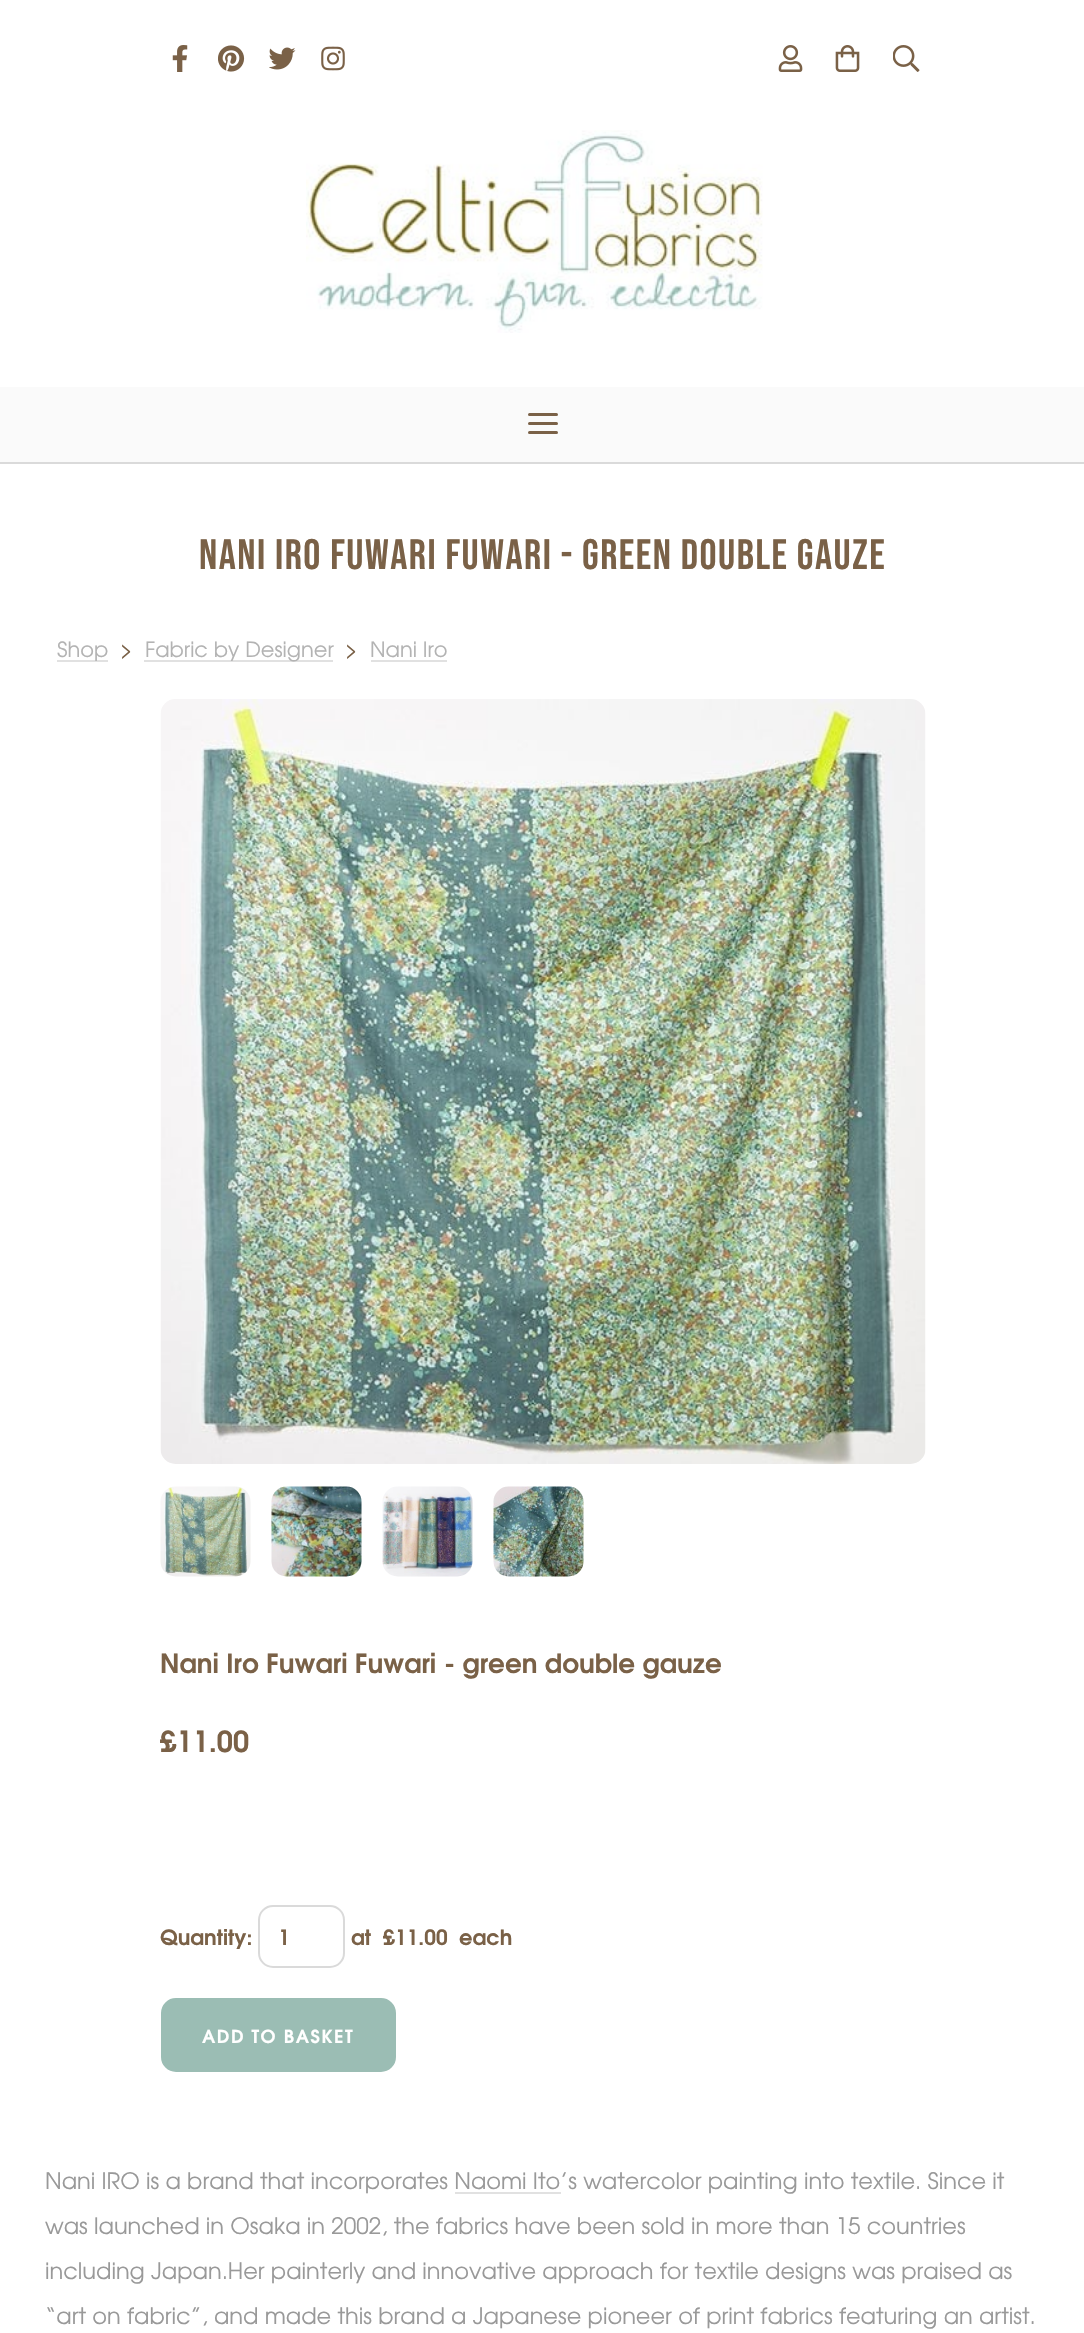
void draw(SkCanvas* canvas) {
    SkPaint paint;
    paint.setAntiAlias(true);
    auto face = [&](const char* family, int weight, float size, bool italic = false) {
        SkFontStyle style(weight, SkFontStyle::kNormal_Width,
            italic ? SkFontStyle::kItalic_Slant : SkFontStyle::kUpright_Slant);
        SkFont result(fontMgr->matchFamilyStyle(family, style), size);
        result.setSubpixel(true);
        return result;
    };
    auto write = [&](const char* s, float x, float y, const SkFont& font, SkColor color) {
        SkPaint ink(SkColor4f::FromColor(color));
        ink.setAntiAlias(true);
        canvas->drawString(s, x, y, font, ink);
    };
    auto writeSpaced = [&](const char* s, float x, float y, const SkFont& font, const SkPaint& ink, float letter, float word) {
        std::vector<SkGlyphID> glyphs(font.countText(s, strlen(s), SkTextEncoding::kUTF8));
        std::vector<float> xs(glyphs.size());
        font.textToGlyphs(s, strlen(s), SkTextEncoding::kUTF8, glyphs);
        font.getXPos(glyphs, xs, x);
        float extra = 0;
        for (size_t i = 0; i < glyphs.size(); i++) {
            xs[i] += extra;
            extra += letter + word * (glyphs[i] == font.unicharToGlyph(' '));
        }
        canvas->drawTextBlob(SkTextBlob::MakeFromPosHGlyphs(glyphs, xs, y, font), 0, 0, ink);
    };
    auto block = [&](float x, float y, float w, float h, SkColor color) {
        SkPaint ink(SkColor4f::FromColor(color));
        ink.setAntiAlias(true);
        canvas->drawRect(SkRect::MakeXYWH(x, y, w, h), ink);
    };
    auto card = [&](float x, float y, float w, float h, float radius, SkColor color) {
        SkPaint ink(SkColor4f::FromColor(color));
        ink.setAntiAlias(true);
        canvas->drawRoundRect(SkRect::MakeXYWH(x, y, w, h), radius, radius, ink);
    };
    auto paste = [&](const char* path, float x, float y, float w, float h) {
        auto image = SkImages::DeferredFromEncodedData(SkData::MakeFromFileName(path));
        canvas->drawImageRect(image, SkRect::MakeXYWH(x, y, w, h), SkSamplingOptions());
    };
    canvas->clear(SK_ColorWHITE);
    block(0, 462, 1084, 2, SkColorSetRGB(218, 218, 218));
    paste("pic1.png", 172, 45, 16, 27);
    paste("pic2.png", 218, 45, 27, 27);
    paste("pic3.png", 269, 47, 27, 23);
    paste("pic4.png", 321, 46, 24, 25);
    paste("pic5.png", 778, 45, 25, 27);
    paste("pic6.png", 835, 45, 25, 27);
    paste("pic7.png", 893, 45, 27, 27);
    paste("pic8.png", 306, 130, 457, 203);
    block(0, 387, 1084, 75, SkColorSetRGB(250, 250, 250));
    card(528, 422, 30, 3, 1.5f, SkColorSetRGB(122, 97, 71));
    card(528, 413, 30, 3, 1.5f, SkColorSetRGB(122, 97, 71));
    card(528, 431, 30, 3, 1.5f, SkColorSetRGB(122, 97, 71));
    auto kFont1 = face("Bebas Neue", 400, 42.6f);
    paint.setColor(SkColorSetRGB(122, 97, 71));
    writeSpaced("Nani Iro Fuwari Fuwari - green double gauze", 199, 569, kFont1, paint, 1.5f, 0);
    block(57, 660, 51, 2, SkColorSetRGB(225, 225, 225));
    auto kFont2 = face("TeX Gyre Adventor", 400, 21);
    write("Shop", 57, 657, kFont2, SkColorSetRGB(179, 179, 179));
    write(">", 120, 657, kFont2, SkColorSetRGB(122, 97, 71));
    block(144, 660, 189, 2, SkColorSetRGB(225, 225, 225));
    write("Fabric by Designer", 145, 657, kFont2, SkColorSetRGB(179, 179, 179));
    write(">", 345, 657, kFont2, SkColorSetRGB(122, 97, 71));
    write("Nani Iro", 370, 657, kFont2, SkColorSetRGB(179, 179, 179));
    block(371, 660, 76, 2, SkColorSetRGB(225, 225, 225));
    paste("pic9.png", 160, 699, 766, 765);
    paste("pic10.png", 160, 1486, 91, 91);
    paste("pic11.png", 271, 1486, 91, 91);
    paste("pic12.png", 382, 1486, 91, 91);
    paste("pic13.png", 493, 1486, 91, 91);
    auto kFont3 = face("TeX Gyre Adventor", 700, 26.25f);
    write("Nani Iro Fuwari Fuwari", 160, 1673, kFont3, SkColorSetRGB(122, 97, 71));
    write("- green double gauze", 444, 1673, kFont3, SkColorSetRGB(122, 97, 71));
    auto kFont4 = face("TeX Gyre Adventor", 700, 29);
    write("£11.00", 160, 1752, kFont4, SkColorSetRGB(122, 97, 71));
    auto kFont5 = face("TeX Gyre Adventor", 700, 21);
    write("Quantity:", 160, 1945, kFont5, SkColorSetRGB(122, 97, 71));
    paint.setStyle(SkPaint::kStroke_Style);
    paint.setStrokeWidth(2);
    paint.setColor(SkColorSetRGB(218, 218, 218));
    canvas->drawRoundRect(SkRect::MakeXYWH(259, 1906, 85, 61), 14, 14, paint);
    write("1", 278, 1945, kFont5, SkColorSetRGB(122, 97, 71));
    write("at", 351, 1945, kFont5, SkColorSetRGB(122, 97, 71));
    write("£11.00", 383, 1945, kFont5, SkColorSetRGB(122, 97, 71));
    write("each", 459, 1945, kFont5, SkColorSetRGB(122, 97, 71));
    paint.setStyle(SkPaint::kFill_Style);
    paint.setColor(SkColorSetRGB(155, 189, 180));
    canvas->drawRoundRect(SkRect::MakeXYWH(162.5f, 1999.5f, 232, 71), 13.5f, 13.5f, paint);
    paint.setStyle(SkPaint::kStroke_Style);
    paint.setStrokeWidth(3);
    canvas->drawRoundRect(SkRect::MakeXYWH(162.5f, 1999.5f, 232, 71), 13.5f, 13.5f, paint);
    auto kFont6 = face("TeX Gyre Adventor", 700, 18);
    paint.setStyle(SkPaint::kFill_Style);
    paint.setColor(SK_ColorWHITE);
    writeSpaced("ADD TO BASKET", 202, 2043, kFont6, paint, 1.5f, 0);
    auto kFont7 = face("TeX Gyre Adventor", 400, 22.5f);
    write("Nani IRO is a brand that incorporates Naomi Ito’s watercolor painting into textile. Since it", 45, 2189, kFont7, SkColorSetRGB(153, 153, 153));
    block(455, 2192, 106, 2, SkColorSetRGB(225, 225, 225));
    write("was launched in Osaka in 2002, the fabrics have been sold in more than 15 countries", 45, 2234, kFont7, SkColorSetRGB(153, 153, 153));
    write("including Japan.Her painterly and innovative approach for textile designs was praised as", 45, 2279, kFont7, SkColorSetRGB(153, 153, 153));
    write("“art on fabric”, and made this brand a Japanese pioneer of print fabrics featuring an artist.", 45, 2324, kFont7, SkColorSetRGB(153, 153, 153));
}
